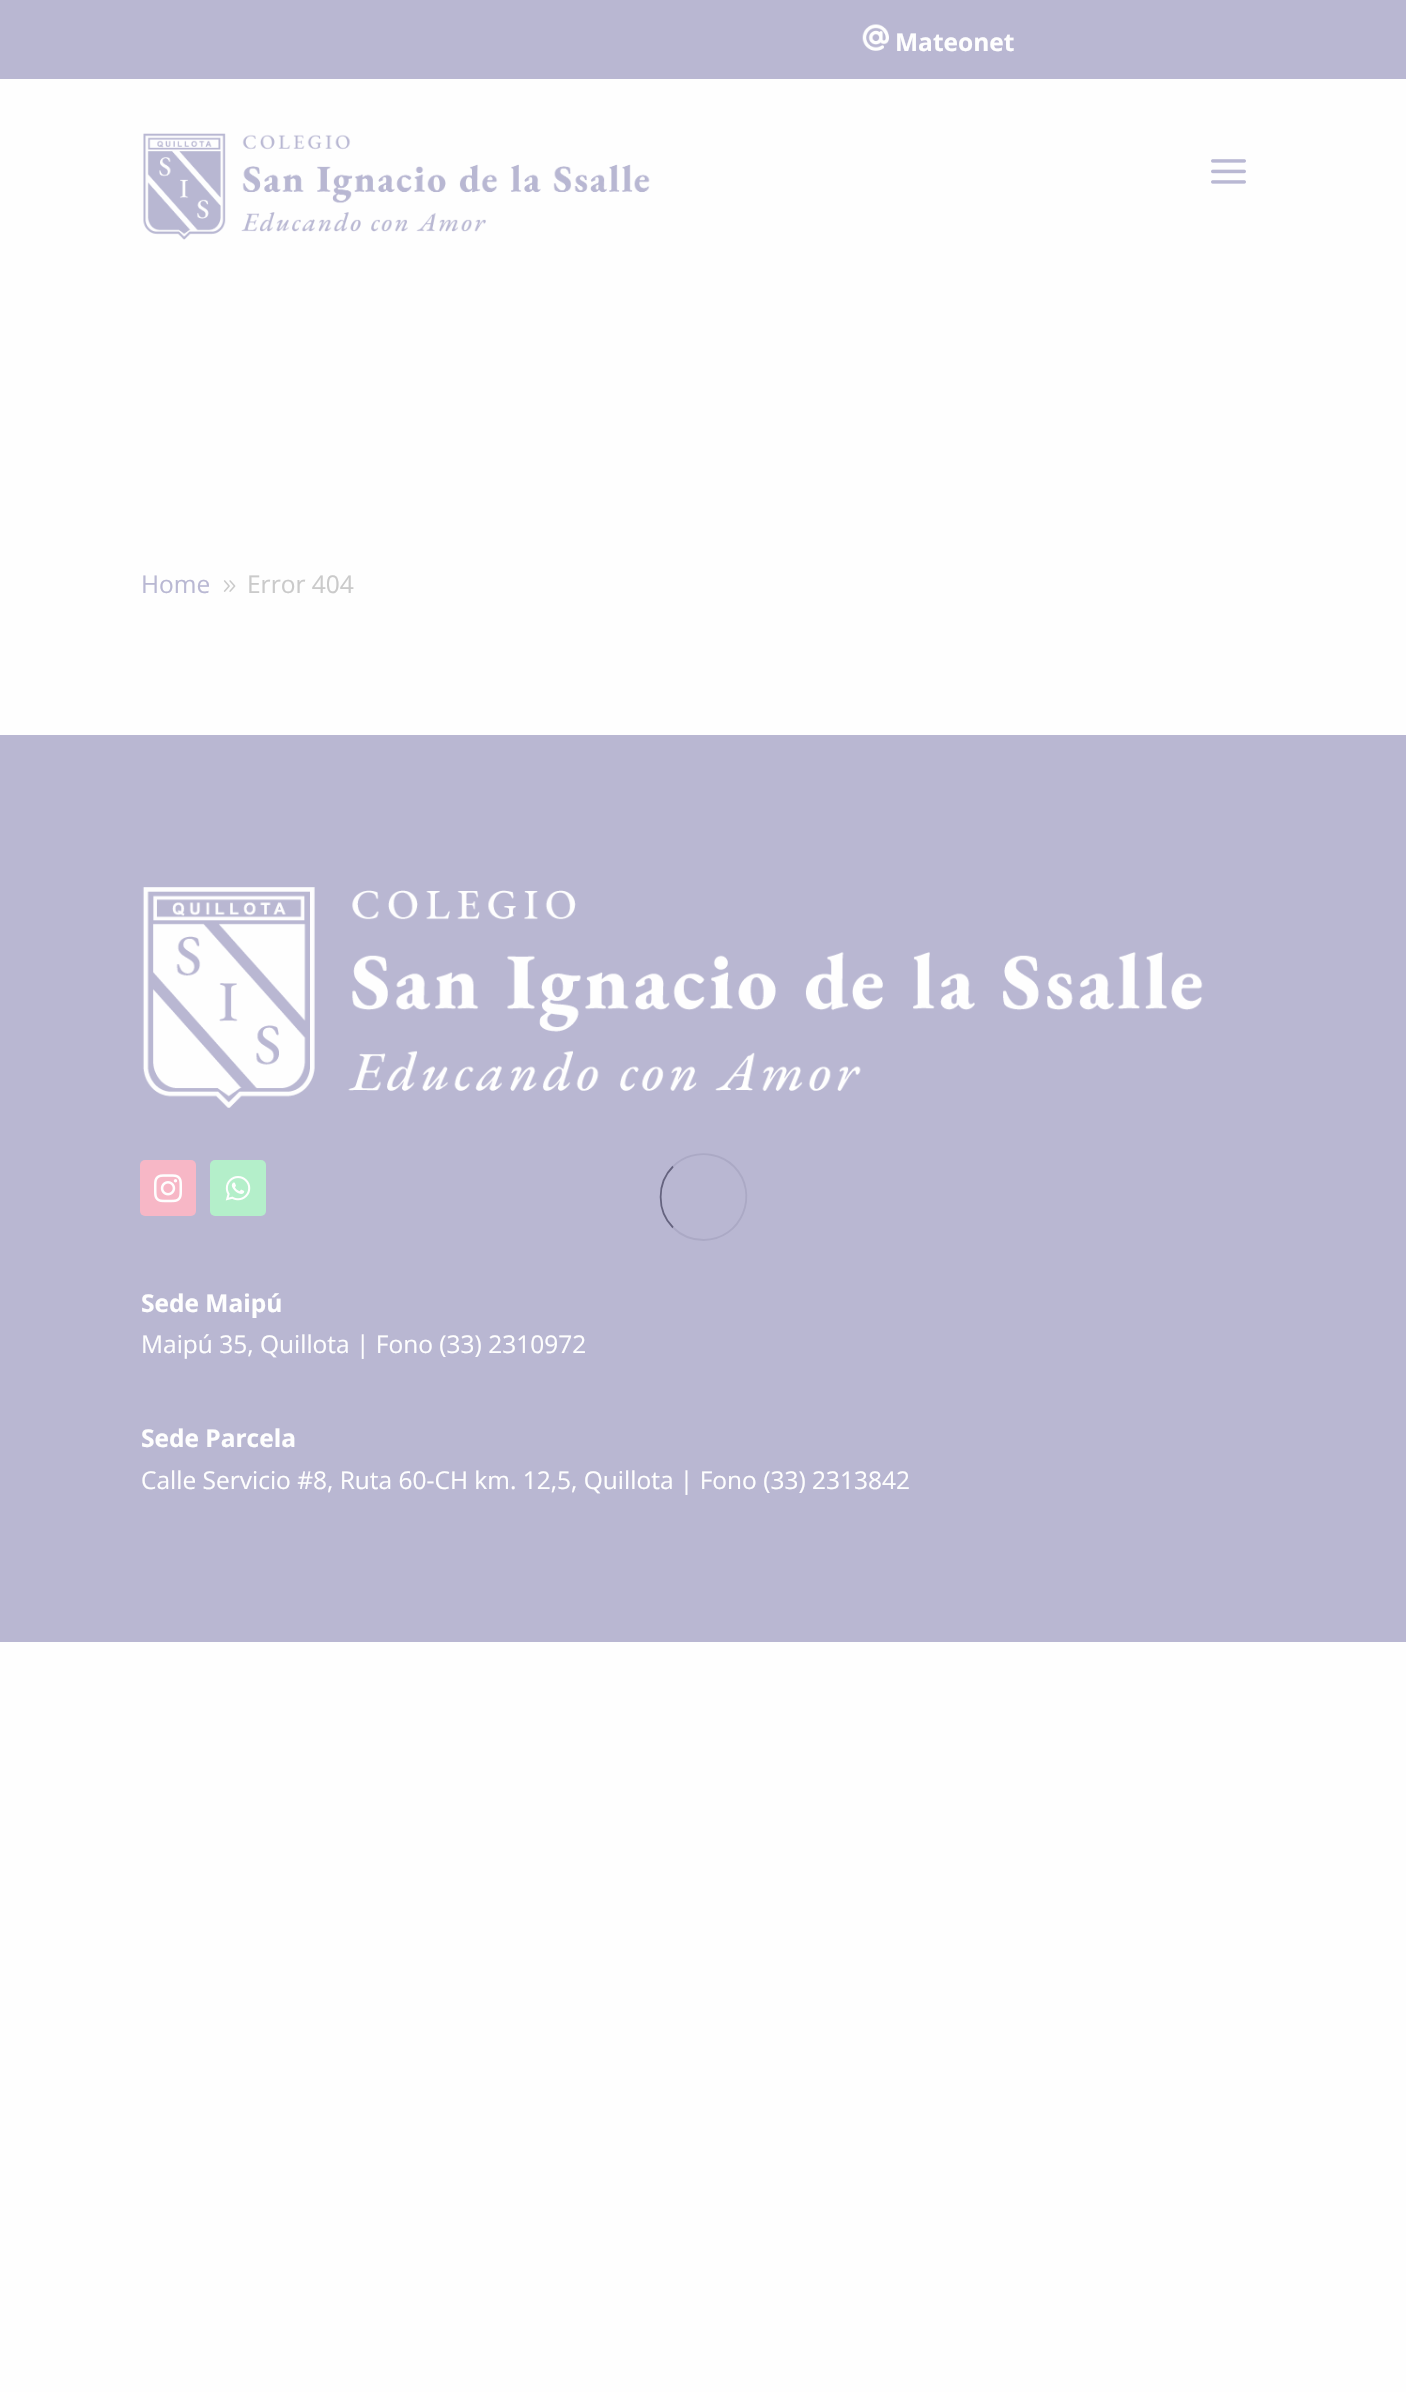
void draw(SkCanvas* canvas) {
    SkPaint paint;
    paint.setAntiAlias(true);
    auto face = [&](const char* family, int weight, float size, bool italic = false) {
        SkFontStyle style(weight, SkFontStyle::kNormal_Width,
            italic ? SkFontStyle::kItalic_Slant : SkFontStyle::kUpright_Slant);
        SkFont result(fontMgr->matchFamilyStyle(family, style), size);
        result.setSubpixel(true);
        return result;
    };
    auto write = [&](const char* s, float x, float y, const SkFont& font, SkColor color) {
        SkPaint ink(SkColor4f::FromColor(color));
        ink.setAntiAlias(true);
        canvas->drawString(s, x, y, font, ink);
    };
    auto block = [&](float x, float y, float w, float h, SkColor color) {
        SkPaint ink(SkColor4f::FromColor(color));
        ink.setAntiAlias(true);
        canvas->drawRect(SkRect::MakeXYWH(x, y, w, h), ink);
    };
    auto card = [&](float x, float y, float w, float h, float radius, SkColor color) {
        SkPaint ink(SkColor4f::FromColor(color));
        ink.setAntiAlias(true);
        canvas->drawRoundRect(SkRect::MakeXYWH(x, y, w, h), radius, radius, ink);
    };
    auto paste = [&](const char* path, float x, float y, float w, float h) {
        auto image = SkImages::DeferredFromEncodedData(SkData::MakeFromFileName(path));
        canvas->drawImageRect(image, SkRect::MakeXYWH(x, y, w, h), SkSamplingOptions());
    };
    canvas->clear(SkColorSetRGB(254, 254, 254));
    block(0, 0, 1406, 79, SkColorSetRGB(185, 183, 210));
    paste("pic1.png", 862, 24, 27, 27);
    auto kFont1 = face("Open Sans", 700, 24.5f);
    write("Mateonet", 895, 51, kFont1, SkColorSetRGB(254, 254, 254));
    paste("pic2.png", 143, 133, 507, 107);
    paste("pic3.png", 1211, 159, 35, 25);
    auto kFont2 = face("Open Sans", 400, 24.5f);
    write("Home", 141, 593, kFont2, SkColorSetRGB(185, 184, 211));
    paste("pic4.png", 223, 580, 13, 12);
    write("Error 404", 247, 593, kFont2, SkColorSetRGB(202, 202, 202));
    block(0, 735, 1406, 907, SkColorSetRGB(185, 183, 210));
    paste("pic5.png", 142, 887, 1061, 221);
    card(140, 1160, 56, 56, 5, SkColorSetRGB(247, 183, 198));
    paste("pic6.png", 154, 1174, 28, 29);
    card(210, 1160, 56, 56, 5, SkColorSetRGB(180, 239, 202));
    paste("pic7.png", 225, 1176, 26, 25);
    write("Sede Maipú", 141, 1312, kFont1, SkColorSetRGB(254, 254, 254));
    write("Maipú 35, Quillota | Fono (33) 2310972", 141, 1353, kFont2, SkColorSetRGB(254, 254, 254));
    write("Sede Parcela", 141, 1447, kFont1, SkColorSetRGB(254, 254, 254));
    write("Calle Servicio #8, Ruta 60-CH km. 12,5, Quillota | Fono (33) 2313842", 141, 1489, kFont2, SkColorSetRGB(254, 254, 254));
    paint.setStyle(SkPaint::kStroke_Style);
    paint.setStrokeWidth(1.8f);
    paint.setColor(SkColorSetRGB(171, 169, 197));
    canvas->drawPath(SkPathBuilder().moveTo(673, 1166.5f).cubicTo(683, 1156.5f, 698, 1152, 712, 1155).cubicTo(720, 1156.5f, 728, 1160.5f, 734, 1166.5f).cubicTo(760.5f, 1193.5f, 741.5f, 1240, 703.5f, 1240).cubicTo(692, 1240, 681, 1235.5f, 673, 1227.5f).detach(), paint);
    paint.setColor(SkColorSetRGB(101, 99, 127));
    canvas->drawPath(SkPathBuilder().moveTo(673, 1227.5f).cubicTo(656.5f, 1211, 656.5f, 1183, 673, 1166.5f).detach(), paint);
}
